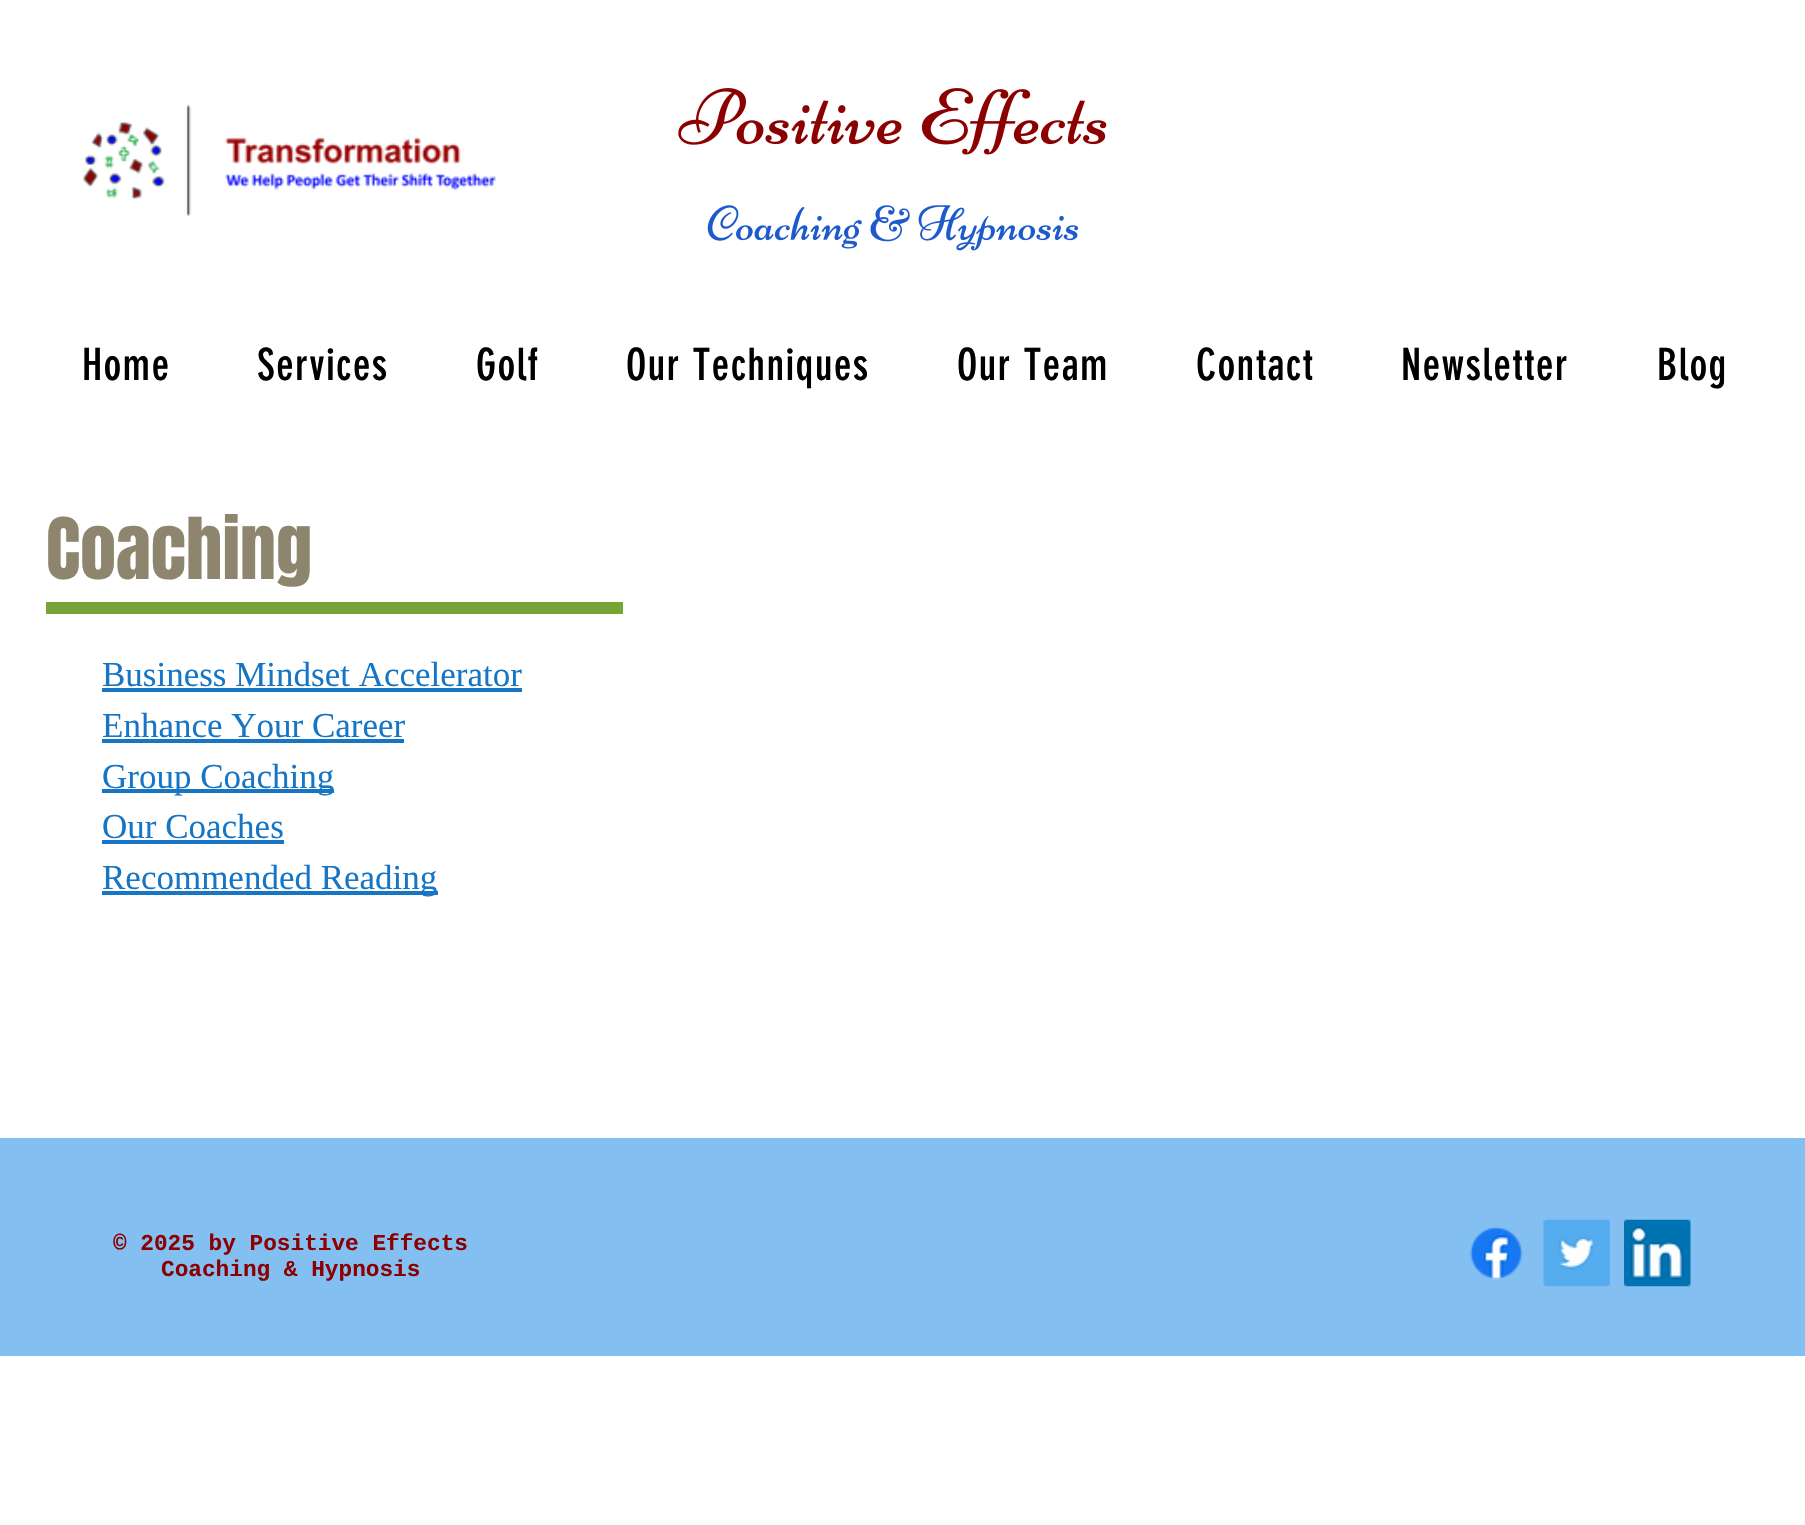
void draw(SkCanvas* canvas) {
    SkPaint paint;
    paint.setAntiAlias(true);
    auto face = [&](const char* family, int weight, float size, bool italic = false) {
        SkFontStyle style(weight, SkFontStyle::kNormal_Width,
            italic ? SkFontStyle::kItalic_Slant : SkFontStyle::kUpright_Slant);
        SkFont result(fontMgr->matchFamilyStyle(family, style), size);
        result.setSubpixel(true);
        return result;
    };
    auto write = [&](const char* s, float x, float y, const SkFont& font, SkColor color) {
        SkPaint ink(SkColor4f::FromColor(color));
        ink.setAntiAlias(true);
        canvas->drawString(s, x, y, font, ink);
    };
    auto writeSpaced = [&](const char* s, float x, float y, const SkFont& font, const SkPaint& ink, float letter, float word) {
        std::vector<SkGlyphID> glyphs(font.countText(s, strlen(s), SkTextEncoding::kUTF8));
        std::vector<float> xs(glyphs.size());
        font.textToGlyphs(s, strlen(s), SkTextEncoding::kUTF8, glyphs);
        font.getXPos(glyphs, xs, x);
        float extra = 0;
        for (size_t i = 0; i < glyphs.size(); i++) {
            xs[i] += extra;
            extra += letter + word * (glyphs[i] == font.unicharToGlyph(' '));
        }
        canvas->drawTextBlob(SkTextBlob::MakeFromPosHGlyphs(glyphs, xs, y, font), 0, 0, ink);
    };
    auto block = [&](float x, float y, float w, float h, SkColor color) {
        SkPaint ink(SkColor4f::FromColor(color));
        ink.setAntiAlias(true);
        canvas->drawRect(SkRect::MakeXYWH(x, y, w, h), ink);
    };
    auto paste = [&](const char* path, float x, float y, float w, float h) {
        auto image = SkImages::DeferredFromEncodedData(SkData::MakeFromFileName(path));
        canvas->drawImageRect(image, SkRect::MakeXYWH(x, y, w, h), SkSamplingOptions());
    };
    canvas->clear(SK_ColorWHITE);
    paste("pic1.png", 82, 104, 414, 112);
    paste("pic2.png", 678, 88, 429, 67);
    paste("pic3.png", 707, 205, 372, 46);
    auto kFont1 = face("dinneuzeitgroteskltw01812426", 400, 43.75f);
    paint.setColor(SK_ColorBLACK);
    writeSpaced("Home", 82, 380, kFont1, paint, 1.25f, 0);
    writeSpaced("Services", 257, 380, kFont1, paint, 1.25f, 0);
    writeSpaced("Golf", 476, 380, kFont1, paint, 1.25f, 0);
    writeSpaced("Our Techniques", 626, 380, kFont1, paint, 1.25f, 0);
    writeSpaced("Our Team", 957, 380, kFont1, paint, 1.25f, 0);
    writeSpaced("Contact", 1196, 380, kFont1, paint, 1.25f, 0);
    writeSpaced("Newsletter", 1401, 380, kFont1, paint, 1.25f, 0);
    writeSpaced("Blog", 1657, 380, kFont1, paint, 1.25f, 0);
    auto kFont2 = face("Anton", 400, 72);
    write("Coaching", 46, 579, kFont2, SkColorSetRGB(141, 133, 109));
    block(46, 602, 577, 12, SkColorSetRGB(118, 165, 53));
    auto kFont3 = face("Liberation Serif", 400, 35);
    write("Business Mindset Accelerator", 102, 686, kFont3, SkColorSetRGB(22, 118, 197));
    block(102, 688, 420, 4, SkColorSetRGB(22, 118, 197));
    write("Enhance Your Career", 102, 737, kFont3, SkColorSetRGB(22, 118, 197));
    block(102, 739, 302, 4, SkColorSetRGB(22, 118, 197));
    block(102, 789, 232, 4, SkColorSetRGB(22, 118, 197));
    write("Group Coaching", 102, 788, kFont3, SkColorSetRGB(22, 118, 197));
    write("Our Coaches", 102, 838, kFont3, SkColorSetRGB(22, 118, 197));
    block(102, 840, 182, 4, SkColorSetRGB(22, 118, 197));
    block(102, 891, 336, 4, SkColorSetRGB(22, 118, 197));
    write("Recommended Reading", 102, 889, kFont3, SkColorSetRGB(22, 118, 197));
    block(0, 1138, 1805, 218, SkColorSetRGB(131, 192, 241));
    auto kFont4 = face("Liberation Mono", 700, 22.75f);
    write("© 2025 by Positive Effects", 113, 1250, kFont4, SkColorSetRGB(139, 0, 0));
    write("Coaching & Hypnosis", 161, 1276, kFont4, SkColorSetRGB(139, 0, 0));
    paste("pic4.png", 1469, 1226, 54, 54);
    paste("pic5.png", 1543, 1219, 67, 68);
    paste("pic6.png", 1624, 1219, 67, 68);
}
